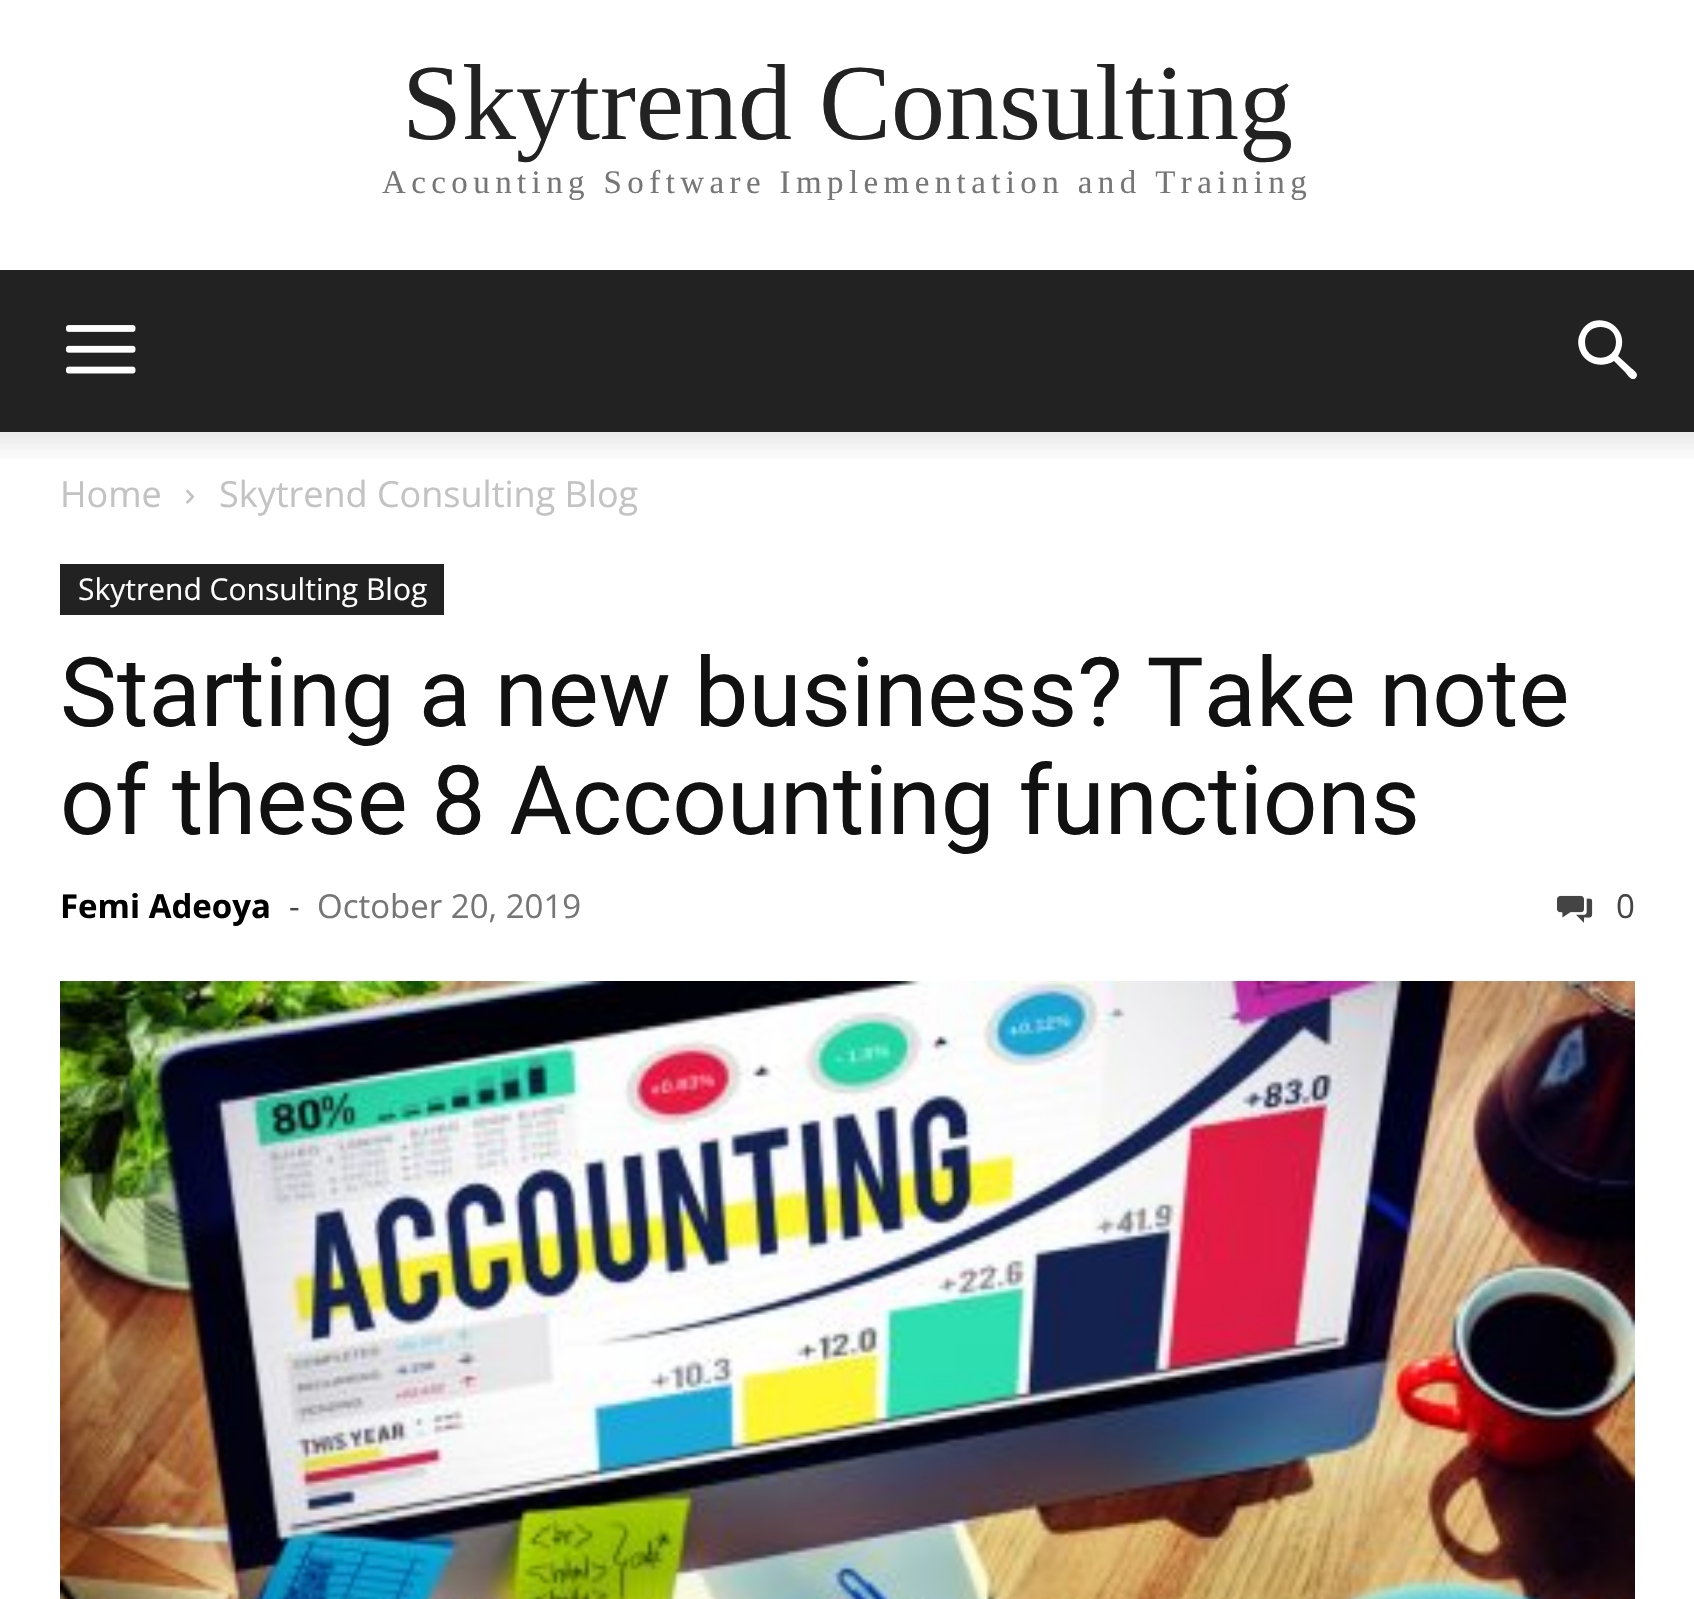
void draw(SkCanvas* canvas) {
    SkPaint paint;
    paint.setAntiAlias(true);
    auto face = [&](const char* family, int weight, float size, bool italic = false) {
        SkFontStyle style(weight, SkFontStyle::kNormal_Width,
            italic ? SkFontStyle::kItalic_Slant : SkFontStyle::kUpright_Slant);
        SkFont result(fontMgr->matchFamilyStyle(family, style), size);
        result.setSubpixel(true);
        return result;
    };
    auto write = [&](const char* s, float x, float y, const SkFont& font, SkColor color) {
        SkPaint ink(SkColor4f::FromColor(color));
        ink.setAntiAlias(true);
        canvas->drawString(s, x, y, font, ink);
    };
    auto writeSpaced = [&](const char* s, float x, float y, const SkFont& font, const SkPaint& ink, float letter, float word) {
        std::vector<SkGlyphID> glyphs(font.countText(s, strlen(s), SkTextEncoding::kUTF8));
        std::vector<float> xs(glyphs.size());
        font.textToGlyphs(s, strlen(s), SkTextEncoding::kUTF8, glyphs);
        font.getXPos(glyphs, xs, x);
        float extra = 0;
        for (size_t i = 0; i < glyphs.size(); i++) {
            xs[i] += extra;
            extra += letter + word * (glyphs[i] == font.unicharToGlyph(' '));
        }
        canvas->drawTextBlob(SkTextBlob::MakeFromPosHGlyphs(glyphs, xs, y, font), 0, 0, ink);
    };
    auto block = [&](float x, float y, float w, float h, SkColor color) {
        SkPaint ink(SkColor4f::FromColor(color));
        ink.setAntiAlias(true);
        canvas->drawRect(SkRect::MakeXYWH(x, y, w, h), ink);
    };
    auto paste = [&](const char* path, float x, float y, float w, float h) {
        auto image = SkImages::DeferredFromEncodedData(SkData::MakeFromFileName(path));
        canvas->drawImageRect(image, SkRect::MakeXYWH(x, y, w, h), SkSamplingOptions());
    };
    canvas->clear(SK_ColorWHITE);
    auto kFont1 = face("Liberation Serif", 400, 108);
    write("Skytrend Consulting", 402, 139, kFont1, SkColorSetRGB(34, 34, 34));
    auto kFont2 = face("Liberation Serif", 400, 33);
    paint.setColor(SkColorSetRGB(118, 118, 118));
    writeSpaced("Accounting Software Implementation and Training", 382, 193, kFont2, paint, 5.4f, 0);
    block(0, 270, 1694, 162, SkColorSetRGB(34, 34, 34));
    paste("pic1.png", 66, 325, 70, 49);
    paint.setColor(SK_ColorWHITE);
    canvas->drawPath(SkPathBuilder().moveTo(1616, 342).cubicTo(1616, 363, 1585, 363, 1585, 342).cubicTo(1585, 322, 1616, 322, 1616, 342).close().moveTo(1637, 375).cubicTo(1637, 372, 1632, 369, 1630, 367).lineTo(1618, 356).cubicTo(1636, 326, 1592, 305, 1580, 334).cubicTo(1577, 340, 1578, 347, 1581, 353).cubicTo(1587, 365, 1603, 368, 1614, 361).lineTo(1625, 372).cubicTo(1627, 374, 1630, 380, 1634, 379).cubicTo(1635, 379, 1637, 377, 1637, 375).close().detach(), paint);
    paste("pic2.png", 0, 432, 1694, 26);
    auto kFont3 = face("Open Sans", 400, 36);
    write("Home", 60, 507, kFont3, SkColorSetRGB(195, 195, 195));
    paste("pic3.png", 186, 489, 9, 15);
    write("Skytrend Consulting Blog", 219, 507, kFont3, SkColorSetRGB(195, 195, 195));
    block(60, 564, 384, 51, SkColorSetRGB(34, 34, 34));
    auto kFont4 = face("Open Sans", 400, 30);
    write("Skytrend Consulting Blog", 78, 600, kFont4, SK_ColorWHITE);
    auto kFont5 = face("Roboto", 400, 96);
    write("Starting a new business? Take note", 60, 726, kFont5, SkColorSetRGB(17, 17, 17));
    write("of these 8 Accounting functions", 60, 834, kFont5, SkColorSetRGB(17, 17, 17));
    auto kFont6 = face("Open Sans", 700, 33);
    write("Femi Adeoya", 60, 918, kFont6, SK_ColorBLACK);
    auto kFont7 = face("Open Sans", 400, 33);
    write("-", 289, 918, kFont7, SkColorSetRGB(68, 68, 68));
    write("October 20, 2019", 317, 918, kFont7, SkColorSetRGB(118, 118, 118));
    paste("pic4.png", 1557, 895, 36, 28);
    write("0", 1616, 918, kFont7, SkColorSetRGB(68, 68, 68));
    paste("pic5.png", 60, 981, 1575, 618);
}
